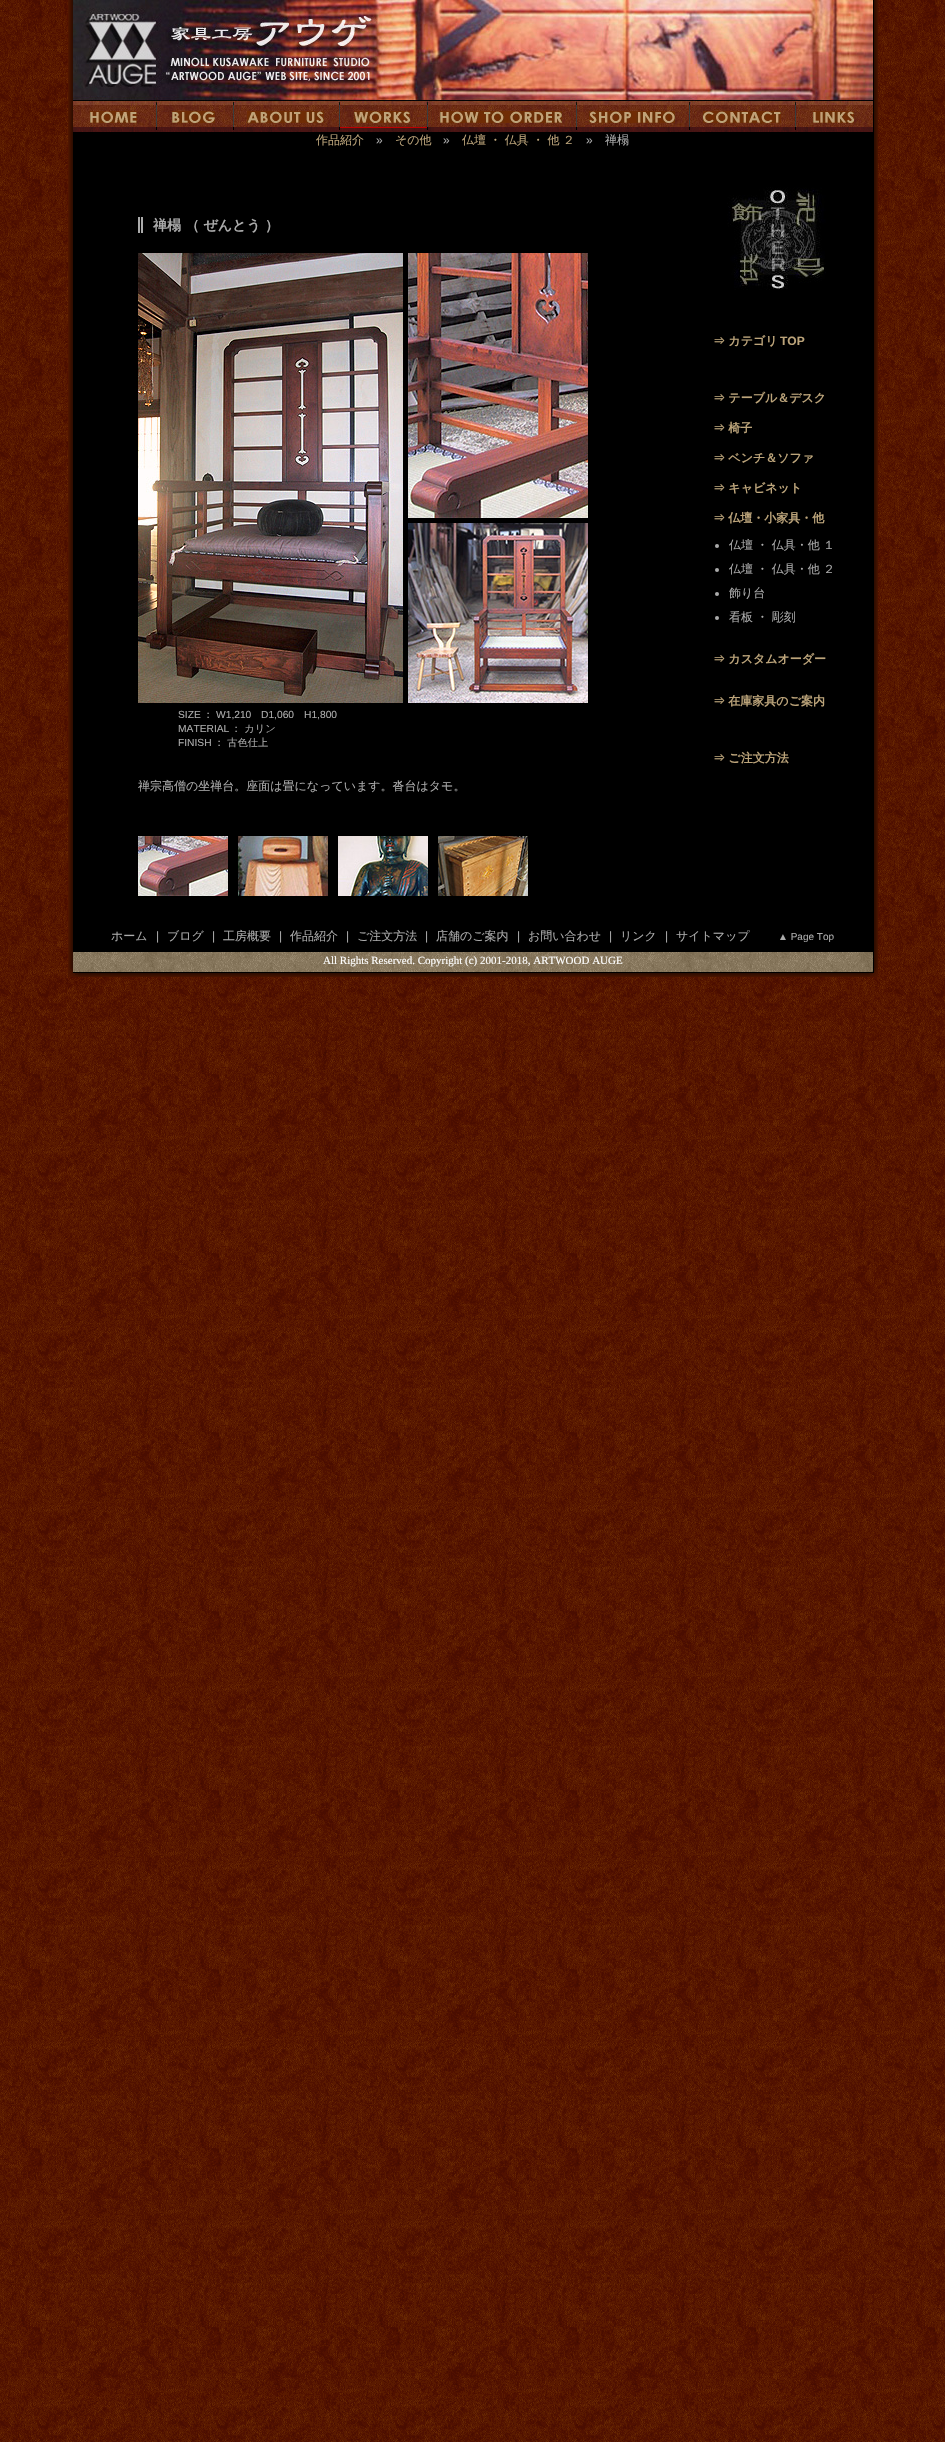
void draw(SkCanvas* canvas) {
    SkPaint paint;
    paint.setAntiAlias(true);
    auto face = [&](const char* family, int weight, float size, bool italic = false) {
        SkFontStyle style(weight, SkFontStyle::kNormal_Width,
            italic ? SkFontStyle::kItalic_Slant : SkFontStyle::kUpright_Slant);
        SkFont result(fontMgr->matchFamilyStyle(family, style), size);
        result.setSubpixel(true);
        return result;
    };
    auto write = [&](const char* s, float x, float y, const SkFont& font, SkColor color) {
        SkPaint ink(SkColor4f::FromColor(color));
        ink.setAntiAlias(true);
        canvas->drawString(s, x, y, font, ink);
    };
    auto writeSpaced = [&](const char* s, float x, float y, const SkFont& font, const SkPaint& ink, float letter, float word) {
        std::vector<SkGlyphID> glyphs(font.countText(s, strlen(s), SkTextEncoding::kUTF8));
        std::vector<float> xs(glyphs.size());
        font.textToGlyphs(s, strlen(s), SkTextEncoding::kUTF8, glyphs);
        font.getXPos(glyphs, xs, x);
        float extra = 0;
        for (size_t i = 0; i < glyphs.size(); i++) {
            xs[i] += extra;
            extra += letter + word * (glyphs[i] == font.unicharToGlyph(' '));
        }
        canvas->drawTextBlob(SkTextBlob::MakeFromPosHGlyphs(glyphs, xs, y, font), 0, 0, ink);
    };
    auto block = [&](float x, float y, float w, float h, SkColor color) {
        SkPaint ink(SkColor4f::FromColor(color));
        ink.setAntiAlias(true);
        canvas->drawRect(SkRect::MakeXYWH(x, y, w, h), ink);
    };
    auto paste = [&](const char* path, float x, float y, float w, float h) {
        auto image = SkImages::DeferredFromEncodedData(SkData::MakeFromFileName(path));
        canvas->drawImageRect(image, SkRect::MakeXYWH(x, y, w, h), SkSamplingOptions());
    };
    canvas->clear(SK_ColorWHITE);
    paste("pic1.png", 0, 0, 945, 2442);
    paste("pic2.png", 68, 0, 810, 977);
    paste("pic3.png", 73, 0, 800, 127);
    paste("pic4.png", 90, 111, 47, 12);
    paste("pic5.png", 172, 111, 43, 12);
    paste("pic6.png", 247, 111, 77, 12);
    paste("pic7.png", 354, 111, 56, 12);
    paste("pic8.png", 440, 111, 122, 12);
    paste("pic9.png", 589, 111, 86, 12);
    paste("pic10.png", 703, 111, 78, 12);
    paste("pic11.png", 813, 111, 41, 12);
    paste("pic12.png", 73, 127, 800, 5);
    auto kFont1 = face("WenQuanYi Zen Hei", 500, 12);
    write("作品紹介", 316, 144, kFont1, SkColorSetRGB(188, 164, 122));
    auto kFont2 = face("Liberation Sans", 400, 12);
    write("»", 376, 144, kFont2, SkColorSetRGB(171, 171, 171));
    write("その他", 395, 144, kFont1, SkColorSetRGB(188, 164, 122));
    write("»", 443, 144, kFont2, SkColorSetRGB(171, 171, 171));
    paint.setColor(SkColorSetRGB(188, 164, 122));
    writeSpaced("仏壇 ・ 仏具 ・ 他 ２", 462, 144, kFont1, paint, 0, -0.25f);
    write("»", 586, 144, kFont2, SkColorSetRGB(171, 171, 171));
    write("禅榻", 605, 144, kFont1, SkColorSetRGB(171, 171, 171));
    auto kFont3 = face("WenQuanYi Zen Hei", 700, 14);
    write("禅榻 （ ぜんとう ）", 153, 230, kFont3, SkColorSetRGB(171, 171, 171));
    block(138, 217, 2, 16, SkColorSetRGB(171, 171, 171));
    block(141, 217, 2, 16, SkColorSetRGB(171, 171, 171));
    paste("pic13.png", 138, 253, 265, 450);
    paste("pic14.png", 408, 253, 180, 265);
    paste("pic15.png", 408, 523, 180, 180);
    auto kFont4 = face("Liberation Sans", 400, 10.25f);
    write("SIZE", 178, 718, kFont4, SkColorSetRGB(171, 171, 171));
    auto kFont5 = face("WenQuanYi Zen Hei", 500, 10.25f);
    write("：", 203, 718, kFont5, SkColorSetRGB(171, 171, 171));
    write("W1,210", 216, 718, kFont4, SkColorSetRGB(171, 171, 171));
    write("D1,060", 261, 718, kFont4, SkColorSetRGB(171, 171, 171));
    write("H1,800", 304, 718, kFont4, SkColorSetRGB(171, 171, 171));
    write("MATERIAL", 178, 732, kFont4, SkColorSetRGB(171, 171, 171));
    write("： カリン", 231, 732, kFont5, SkColorSetRGB(171, 171, 171));
    write("FINISH", 178, 746, kFont4, SkColorSetRGB(171, 171, 171));
    write("： 古色仕上", 214, 746, kFont5, SkColorSetRGB(171, 171, 171));
    write("禅宗高僧の坐禅台。座面は畳になっています。沓台はタモ。", 138, 790, kFont1, SkColorSetRGB(171, 171, 171));
    paste("pic16.png", 138, 836, 90, 60);
    paste("pic17.png", 238, 836, 90, 60);
    paste("pic18.png", 338, 836, 90, 60);
    paste("pic19.png", 438, 836, 90, 60);
    paste("pic20.png", 727, 187, 99, 103);
    auto kFont6 = face("WenQuanYi Zen Hei", 700, 12);
    writeSpaced("⇒ カテゴリ", 713, 345, kFont6, paint, 0, -0.25f);
    auto kFont7 = face("Liberation Sans", 700, 12);
    write("TOP", 780, 345, kFont7, SkColorSetRGB(188, 164, 122));
    writeSpaced("⇒ テーブル＆デスク", 713, 402, kFont6, paint, 0, -0.25f);
    writeSpaced("⇒ 椅子", 713, 432, kFont6, paint, 0, -0.25f);
    writeSpaced("⇒ ベンチ＆ソファ", 713, 462, kFont6, paint, 0, -0.25f);
    writeSpaced("⇒ キャビネット", 713, 492, kFont6, paint, 0, -0.25f);
    writeSpaced("⇒ 仏壇・小家具・他", 713, 522, kFont6, paint, 0, -0.25f);
    paint.setColor(SkColorSetRGB(171, 171, 171));
    canvas->drawCircle(717, 546, 2, paint);
    writeSpaced("仏壇 ・ 仏具・他 １", 729, 549, kFont1, paint, 0, -0.25f);
    canvas->drawCircle(717, 570, 2, paint);
    writeSpaced("仏壇 ・ 仏具・他 ２", 729, 573, kFont1, paint, 0, -0.25f);
    canvas->drawCircle(717, 594, 2, paint);
    write("飾り台", 729, 597, kFont1, SkColorSetRGB(171, 171, 171));
    canvas->drawCircle(717, 618, 2, paint);
    writeSpaced("看板 ・ 彫刻", 729, 621, kFont1, paint, 0, -0.25f);
    paint.setColor(SkColorSetRGB(188, 164, 122));
    writeSpaced("⇒ カスタムオーダー", 713, 663, kFont6, paint, 0, -0.25f);
    writeSpaced("⇒ 在庫家具のご案内", 713, 705, kFont6, paint, 0, -0.25f);
    writeSpaced("⇒ ご注文方法", 713, 762, kFont6, paint, 0, -0.25f);
    write("ホーム", 111, 940, kFont1, SkColorSetRGB(171, 171, 171));
    write("|", 156, 940, kFont2, SkColorSetRGB(171, 171, 171));
    write("ブログ", 167, 940, kFont1, SkColorSetRGB(171, 171, 171));
    write("|", 212, 940, kFont2, SkColorSetRGB(171, 171, 171));
    write("工房概要", 223, 940, kFont1, SkColorSetRGB(171, 171, 171));
    write("|", 279, 940, kFont2, SkColorSetRGB(171, 171, 171));
    write("作品紹介", 290, 940, kFont1, SkColorSetRGB(171, 171, 171));
    write("|", 346, 940, kFont2, SkColorSetRGB(171, 171, 171));
    write("ご注文方法", 357, 940, kFont1, SkColorSetRGB(171, 171, 171));
    write("|", 425, 940, kFont2, SkColorSetRGB(171, 171, 171));
    write("店舗のご案内", 436, 940, kFont1, SkColorSetRGB(171, 171, 171));
    write("|", 517, 940, kFont2, SkColorSetRGB(171, 171, 171));
    write("お問い合わせ", 528, 940, kFont1, SkColorSetRGB(171, 171, 171));
    write("|", 609, 940, kFont2, SkColorSetRGB(171, 171, 171));
    write("リンク", 620, 940, kFont1, SkColorSetRGB(171, 171, 171));
    write("|", 665, 940, kFont2, SkColorSetRGB(171, 171, 171));
    write("サイトマップ", 676, 940, kFont1, SkColorSetRGB(171, 171, 171));
    auto kFont8 = face("Liberation Sans", 400, 10);
    write("▲ Page Top", 778, 940, kFont8, SkColorSetRGB(171, 171, 171));
    paste("pic21.png", 69, 952, 809, 25);
    auto kFont9 = face("Liberation Serif", 400, 11);
    write("All Rights Reserved. Copyright (c) 2001-2018, ARTWOOD AUGE", 323, 964, kFont9, SK_ColorWHITE);
}
